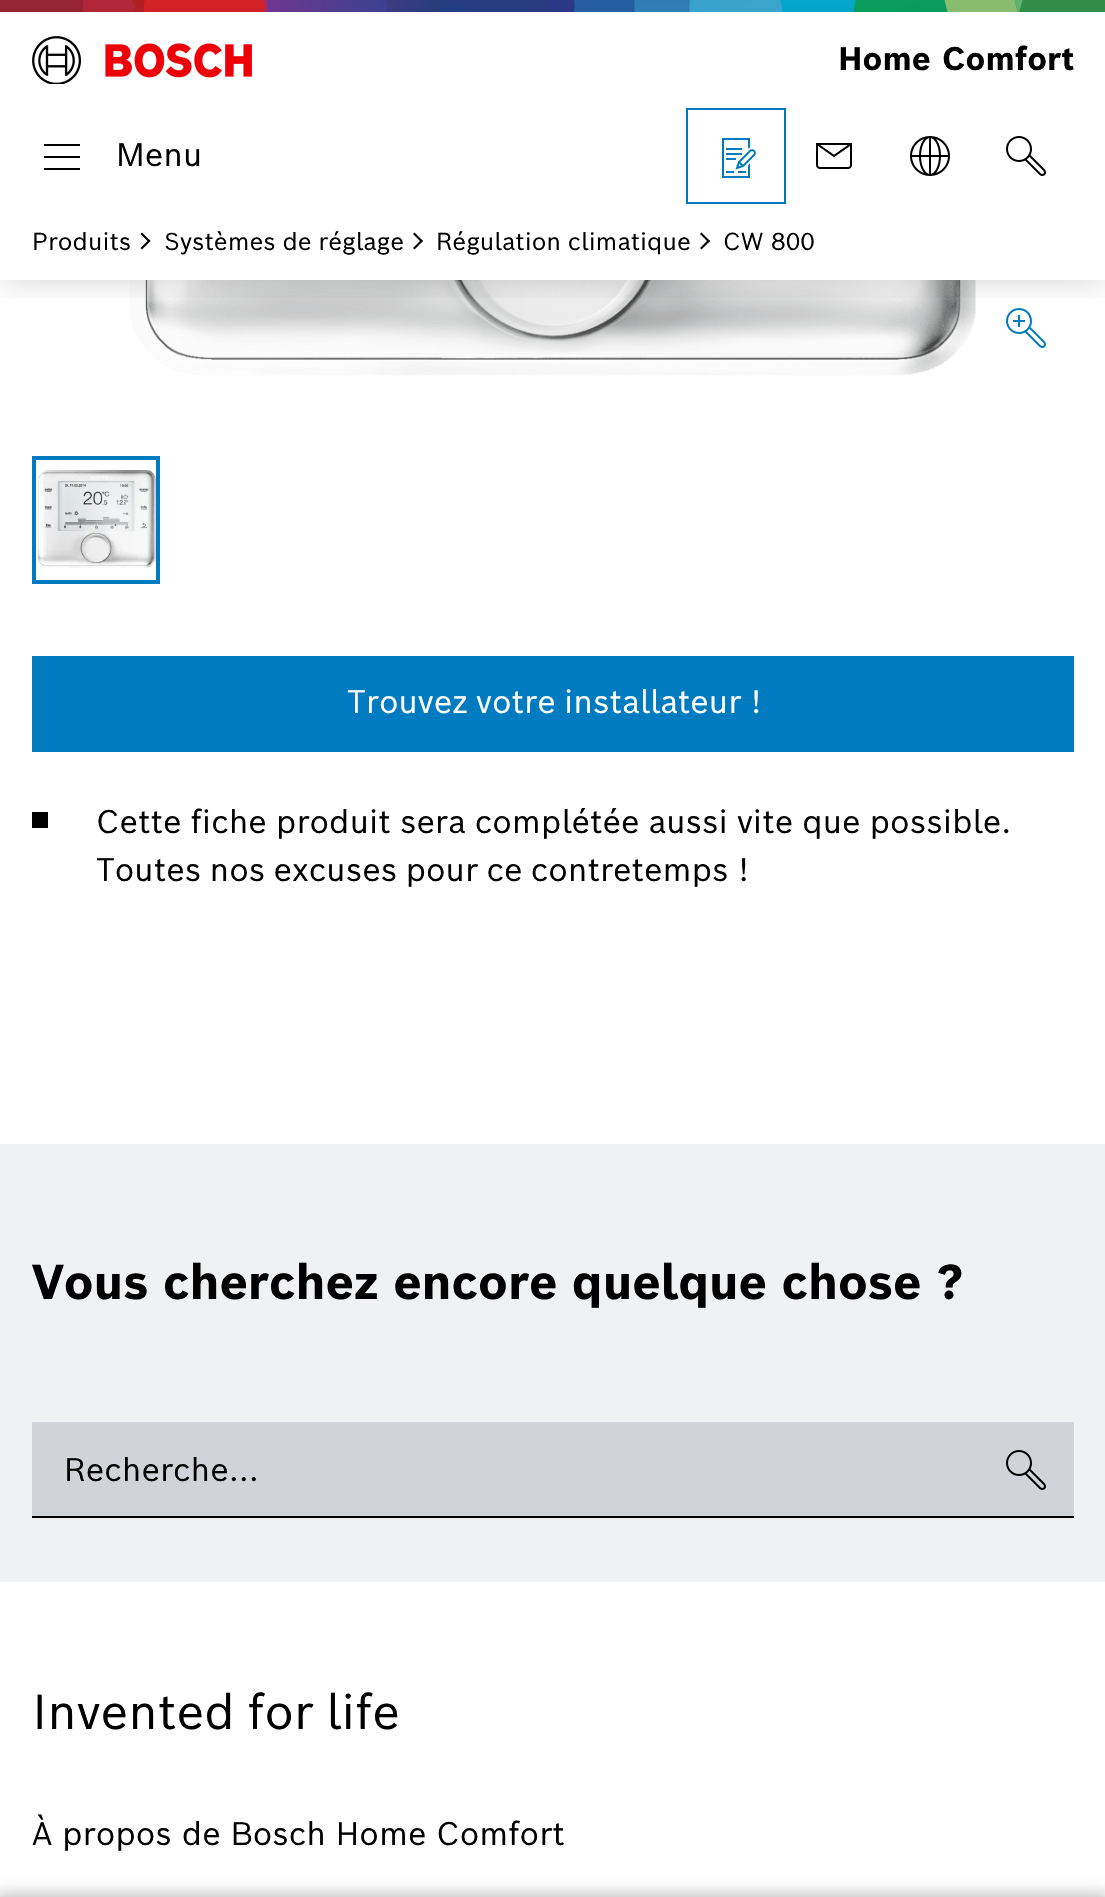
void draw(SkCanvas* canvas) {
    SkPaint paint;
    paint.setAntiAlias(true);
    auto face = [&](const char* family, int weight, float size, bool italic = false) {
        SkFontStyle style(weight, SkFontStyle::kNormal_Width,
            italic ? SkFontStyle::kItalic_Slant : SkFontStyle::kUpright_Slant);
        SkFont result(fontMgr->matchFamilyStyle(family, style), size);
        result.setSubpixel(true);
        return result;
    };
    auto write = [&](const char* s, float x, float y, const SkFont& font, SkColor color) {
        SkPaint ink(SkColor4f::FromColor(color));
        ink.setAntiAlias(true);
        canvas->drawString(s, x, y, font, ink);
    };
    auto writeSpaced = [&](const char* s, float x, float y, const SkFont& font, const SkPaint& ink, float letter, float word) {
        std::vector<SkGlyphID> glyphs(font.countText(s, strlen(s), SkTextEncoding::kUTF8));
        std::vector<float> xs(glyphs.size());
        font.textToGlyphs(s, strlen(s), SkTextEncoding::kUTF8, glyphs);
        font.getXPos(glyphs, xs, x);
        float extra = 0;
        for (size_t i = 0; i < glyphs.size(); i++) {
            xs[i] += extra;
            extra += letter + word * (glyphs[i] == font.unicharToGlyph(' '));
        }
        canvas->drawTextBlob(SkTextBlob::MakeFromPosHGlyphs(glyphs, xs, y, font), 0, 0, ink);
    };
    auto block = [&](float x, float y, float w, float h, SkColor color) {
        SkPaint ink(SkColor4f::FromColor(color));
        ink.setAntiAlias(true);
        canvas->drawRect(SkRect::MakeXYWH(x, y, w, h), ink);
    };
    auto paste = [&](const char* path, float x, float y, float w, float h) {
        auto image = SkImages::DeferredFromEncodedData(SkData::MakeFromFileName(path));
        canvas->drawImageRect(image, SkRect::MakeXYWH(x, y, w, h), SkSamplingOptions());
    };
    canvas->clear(SK_ColorWHITE);
    paste("pic7.png", 130, 280, 846, 96);
    paste("pic8.png", 1006, 308, 40, 40);
    canvas->save();
    canvas->clipRect(SkRect::MakeXYWH(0, 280, 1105, 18));
    paint.setColor(SkColorSetARGB(41, 0, 0, 0));
    paint.setMaskFilter(SkMaskFilter::MakeBlur(kNormal_SkBlurStyle, 16));
    canvas->drawRect(SkRect::MakeXYWH(0, -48, 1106, 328), paint);
    paint.setMaskFilter(nullptr);
    canvas->restore();
    paste("pic1.png", 0, 0, 1105, 12);
    paste("pic2.png", 32, 36, 220, 48);
    auto kFont1 = face("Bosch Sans", 700, 32);
    paint.setColor(SK_ColorBLACK);
    writeSpaced("Home Comfort", 838, 70, kFont1, paint, 0, 1);
    paint.setStyle(SkPaint::kStroke_Style);
    paint.setStrokeWidth(2);
    paint.setColor(SkColorSetRGB(0, 123, 192));
    canvas->drawRect(SkRect::MakeXYWH(687, 109, 98, 94), paint);
    paste("pic3.png", 722, 138, 34, 40);
    paste("pic4.png", 816, 143, 36, 26);
    paste("pic5.png", 910, 136, 40, 40);
    paste("pic6.png", 1006, 136, 40, 40);
    block(44, 144, 36, 2, SK_ColorBLACK);
    block(44, 156, 36, 2, SK_ColorBLACK);
    block(44, 168, 36, 2, SK_ColorBLACK);
    auto kFont2 = face("Bosch Sans", 400, 32);
    write("Menu", 116, 166, kFont2, SK_ColorBLACK);
    auto kFont3 = face("Bosch Sans", 400, 24);
    write("Produits", 32, 250, kFont3, SK_ColorBLACK);
    paint.setStyle(SkPaint::kFill_Style);
    paint.setColor(SK_ColorBLACK);
    canvas->drawPath(SkPathBuilder().moveTo(142, 232.5f).lineTo(150.5f, 241).lineTo(149, 242.5f).lineTo(140.5f, 234).close().detach(), paint);
    canvas->drawPath(SkPathBuilder().moveTo(149, 239.5f).lineTo(150.5f, 241).lineTo(142, 249.5f).lineTo(140.5f, 248).close().detach(), paint);
    writeSpaced("Systèmes de réglage", 164, 250, kFont3, paint, 0, -1);
    canvas->drawPath(SkPathBuilder().moveTo(414.5f, 232.5f).lineTo(423, 241).lineTo(421.5f, 242.5f).lineTo(413, 234).close().detach(), paint);
    canvas->drawPath(SkPathBuilder().moveTo(421.5f, 239.5f).lineTo(423, 241).lineTo(414.5f, 249.5f).lineTo(413, 248).close().detach(), paint);
    writeSpaced("Régulation climatique", 436, 250, kFont3, paint, 0, -1);
    canvas->drawPath(SkPathBuilder().moveTo(701.5f, 232.5f).lineTo(710, 241).lineTo(708.5f, 242.5f).lineTo(700, 234).close().detach(), paint);
    canvas->drawPath(SkPathBuilder().moveTo(708.5f, 239.5f).lineTo(710, 241).lineTo(701.5f, 249.5f).lineTo(700, 248).close().detach(), paint);
    write("CW 800", 723, 250, kFont3, SK_ColorBLACK);
    paint.setStyle(SkPaint::kStroke_Style);
    paint.setStrokeWidth(4);
    paint.setColor(SkColorSetRGB(0, 123, 192));
    canvas->drawRect(SkRect::MakeXYWH(34, 458, 124, 124), paint);
    paste("pic9.png", 36, 470, 120, 98);
    block(32, 656, 1042, 96, SkColorSetRGB(0, 123, 192));
    paint.setStyle(SkPaint::kFill_Style);
    paint.setColor(SK_ColorWHITE);
    writeSpaced("Trouvez votre installateur !", 347, 713, kFont2, paint, 0, -2);
    block(32, 812, 16, 16, SK_ColorBLACK);
    paint.setColor(SK_ColorBLACK);
    writeSpaced("Cette fiche produit sera complétée aussi vite que possible.", 96, 833, kFont2, paint, 0, -1.25f);
    writeSpaced("Toutes nos excuses pour ce contretemps !", 96, 881, kFont2, paint, 0, -2);
    block(0, 1144, 1105, 438, SkColorSetRGB(239, 241, 242));
    auto kFont4 = face("Bosch Sans", 700, 48);
    writeSpaced("Vous cherchez encore quelque chose ?", 32, 1299, kFont4, paint, 0, -1);
    block(32, 1422, 1042, 94, SkColorSetRGB(208, 212, 216));
    block(32, 1516, 1042, 2, SK_ColorBLACK);
    write("Recherche...", 64, 1481, kFont2, SK_ColorBLACK);
    paste("pic10.png", 1006, 1450, 40, 40);
    auto kFont5 = face("Bosch Sans", 400, 48);
    writeSpaced("Invented for life", 32, 1729, kFont5, paint, 0, -3);
    writeSpaced("À propos de Bosch Home Comfort", 32, 1845, kFont2, paint, 0, -0.5f);
    paint.setColor(SkColorSetARGB(64, 0, 0, 0));
    paint.setMaskFilter(SkMaskFilter::MakeBlur(kNormal_SkBlurStyle, 8));
    canvas->drawRect(SkRect::MakeXYWH(-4, 1894, 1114, 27), paint);
    paint.setMaskFilter(nullptr);
}
